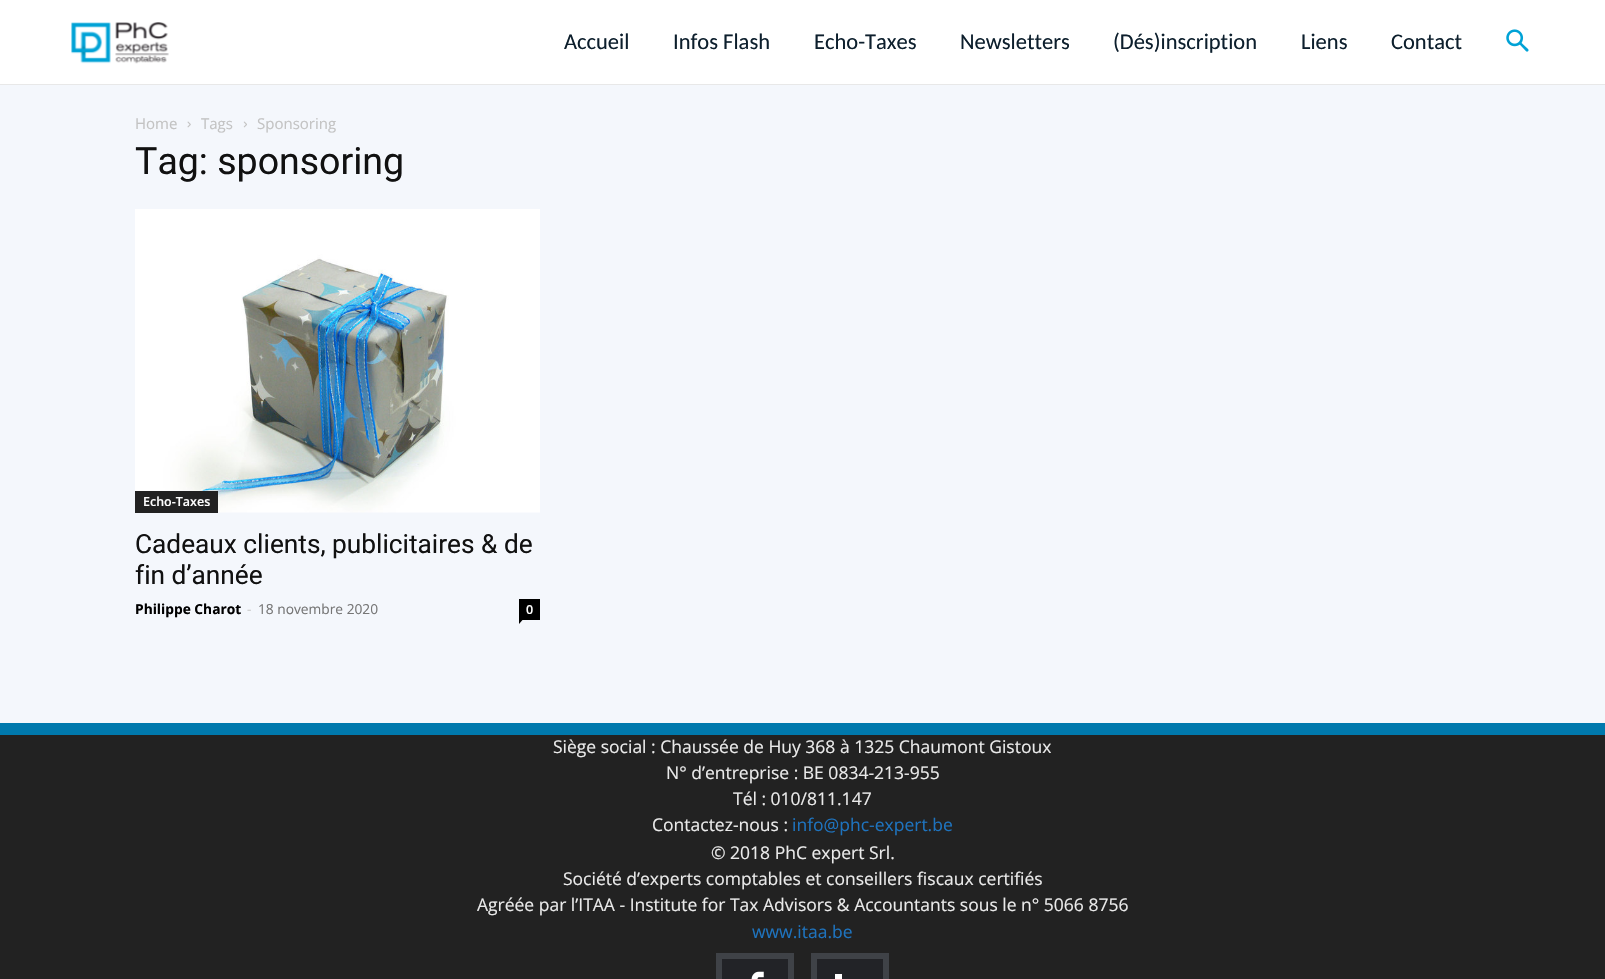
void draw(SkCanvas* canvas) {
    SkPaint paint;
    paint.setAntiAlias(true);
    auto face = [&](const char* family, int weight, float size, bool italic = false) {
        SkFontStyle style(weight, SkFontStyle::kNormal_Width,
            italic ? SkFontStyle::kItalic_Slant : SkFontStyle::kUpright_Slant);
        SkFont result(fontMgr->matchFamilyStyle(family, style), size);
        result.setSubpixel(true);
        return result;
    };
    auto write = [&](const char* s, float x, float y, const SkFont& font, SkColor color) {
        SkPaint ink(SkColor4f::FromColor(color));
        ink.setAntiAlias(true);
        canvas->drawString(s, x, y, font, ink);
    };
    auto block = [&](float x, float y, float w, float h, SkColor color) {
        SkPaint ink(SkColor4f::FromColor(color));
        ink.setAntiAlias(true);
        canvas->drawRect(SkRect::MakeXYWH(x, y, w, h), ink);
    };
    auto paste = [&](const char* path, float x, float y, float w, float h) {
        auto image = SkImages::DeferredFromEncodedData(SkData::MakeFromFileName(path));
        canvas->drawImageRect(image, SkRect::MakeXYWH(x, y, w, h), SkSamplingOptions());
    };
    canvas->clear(SkColorSetRGB(244, 247, 252));
    block(0, 0, 1605, 84, SK_ColorWHITE);
    block(0, 84, 1605, 1, SkColorSetRGB(232, 232, 232));
    paste("pic1.png", 71, 22, 98, 42);
    auto kFont1 = face("Carlito", 400, 22.5f);
    write("Accueil", 564, 49, kFont1, SkColorSetRGB(13, 31, 45));
    write("Infos Flash", 673, 49, kFont1, SkColorSetRGB(13, 31, 45));
    write("Echo-Taxes", 814, 49, kFont1, SkColorSetRGB(13, 31, 45));
    write("Newsletters", 960, 49, kFont1, SkColorSetRGB(13, 31, 45));
    write("(Dés)inscription", 1113, 49, kFont1, SkColorSetRGB(13, 31, 45));
    write("Liens", 1301, 49, kFont1, SkColorSetRGB(13, 31, 45));
    write("Contact", 1391, 49, kFont1, SkColorSetRGB(13, 31, 45));
    paste("pic2.png", 1506, 29, 23, 23);
    auto kFont2 = face("Open Sans", 400, 15);
    write("Home", 135, 129, kFont2, SkColorSetRGB(195, 195, 195));
    paste("pic3.png", 187, 121, 4, 7);
    write("Tags", 201, 129, kFont2, SkColorSetRGB(195, 195, 195));
    paste("pic4.png", 243, 121, 4, 7);
    write("Sponsoring", 257, 129, kFont2, SkColorSetRGB(195, 195, 195));
    auto kFont3 = face("Roboto", 400, 37.5f);
    write("Tag: sponsoring", 135, 174, kFont3, SkColorSetRGB(17, 17, 17));
    paste("pic5.png", 135, 209, 405, 304);
    block(135, 491, 83, 22, SkColorSetRGB(34, 34, 34));
    auto kFont4 = face("Open Sans", 600, 12.5f);
    write("Echo-Taxes", 143, 506, kFont4, SK_ColorWHITE);
    auto kFont5 = face("Roboto", 400, 26.25f);
    write("Cadeaux clients, publicitaires & de", 135, 553, kFont5, SkColorSetRGB(17, 17, 17));
    write("fin d’année", 135, 584, kFont5, SkColorSetRGB(17, 17, 17));
    auto kFont6 = face("Open Sans", 700, 13.75f);
    write("Philippe Charot", 135, 614, kFont6, SK_ColorBLACK);
    auto kFont7 = face("Open Sans", 400, 13.75f);
    write("-", 247, 614, kFont7, SkColorSetRGB(204, 204, 204));
    write("18 novembre 2020", 258, 614, kFont7, SkColorSetRGB(118, 118, 118));
    block(519, 599, 21, 21, SK_ColorBLACK);
    write("0", 526, 614, kFont4, SK_ColorWHITE);
    paint.setColor(SK_ColorBLACK);
    canvas->drawPath(SkPathBuilder().moveTo(519, 620).lineTo(522.5f, 620).lineTo(519, 624).close().detach(), paint);
    block(0, 735, 1605, 244, SkColorSetRGB(34, 34, 34));
    block(0, 723, 1605, 12, SkColorSetRGB(0, 121, 173));
    auto kFont8 = face("Open Sans", 400, 17.5f);
    write("Siège social : Chaussée de Huy 368 à 1325 Chaumont Gistoux", 553, 753, kFont8, SkColorSetRGB(234, 234, 234));
    write("N° d’entreprise : BE 0834-213-955", 666, 779, kFont8, SkColorSetRGB(234, 234, 234));
    write("Tél : 010/811.147", 733, 805, kFont8, SkColorSetRGB(234, 234, 234));
    write("Contactez-nous :", 652, 831, kFont8, SkColorSetRGB(234, 234, 234));
    write("info@phc-expert.be", 792, 831, kFont8, SkColorSetRGB(30, 115, 190));
    write("© 2018 PhC expert Srl.", 711, 859, kFont8, SkColorSetRGB(234, 234, 234));
    write("Société d’experts comptables et conseillers fiscaux certifiés", 563, 885, kFont8, SkColorSetRGB(234, 234, 234));
    write("Agréée par l’ITAA - Institute for Tax Advisors & Accountants sous le n° 5066 8756", 477, 911, kFont8, SkColorSetRGB(234, 234, 234));
    write("www.itaa.be", 752, 938, kFont8, SkColorSetRGB(30, 115, 190));
    paint.setColor(SkColorSetRGB(34, 35, 39));
    canvas->drawRect(SkRect::MakeXYWH(719, 956, 72, 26), paint);
    paint.setStyle(SkPaint::kStroke_Style);
    paint.setStrokeWidth(6);
    paint.setColor(SkColorSetRGB(63, 66, 71));
    canvas->drawRect(SkRect::MakeXYWH(719, 956, 72, 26), paint);
    paste("pic6.png", 751, 971, 13, 8);
    paint.setStyle(SkPaint::kFill_Style);
    paint.setColor(SkColorSetRGB(34, 35, 39));
    canvas->drawRect(SkRect::MakeXYWH(814, 956, 72, 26), paint);
    paint.setStyle(SkPaint::kStroke_Style);
    paint.setColor(SkColorSetRGB(63, 66, 71));
    canvas->drawRect(SkRect::MakeXYWH(814, 956, 72, 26), paint);
    block(835, 974, 7, 5, SK_ColorWHITE);
}
